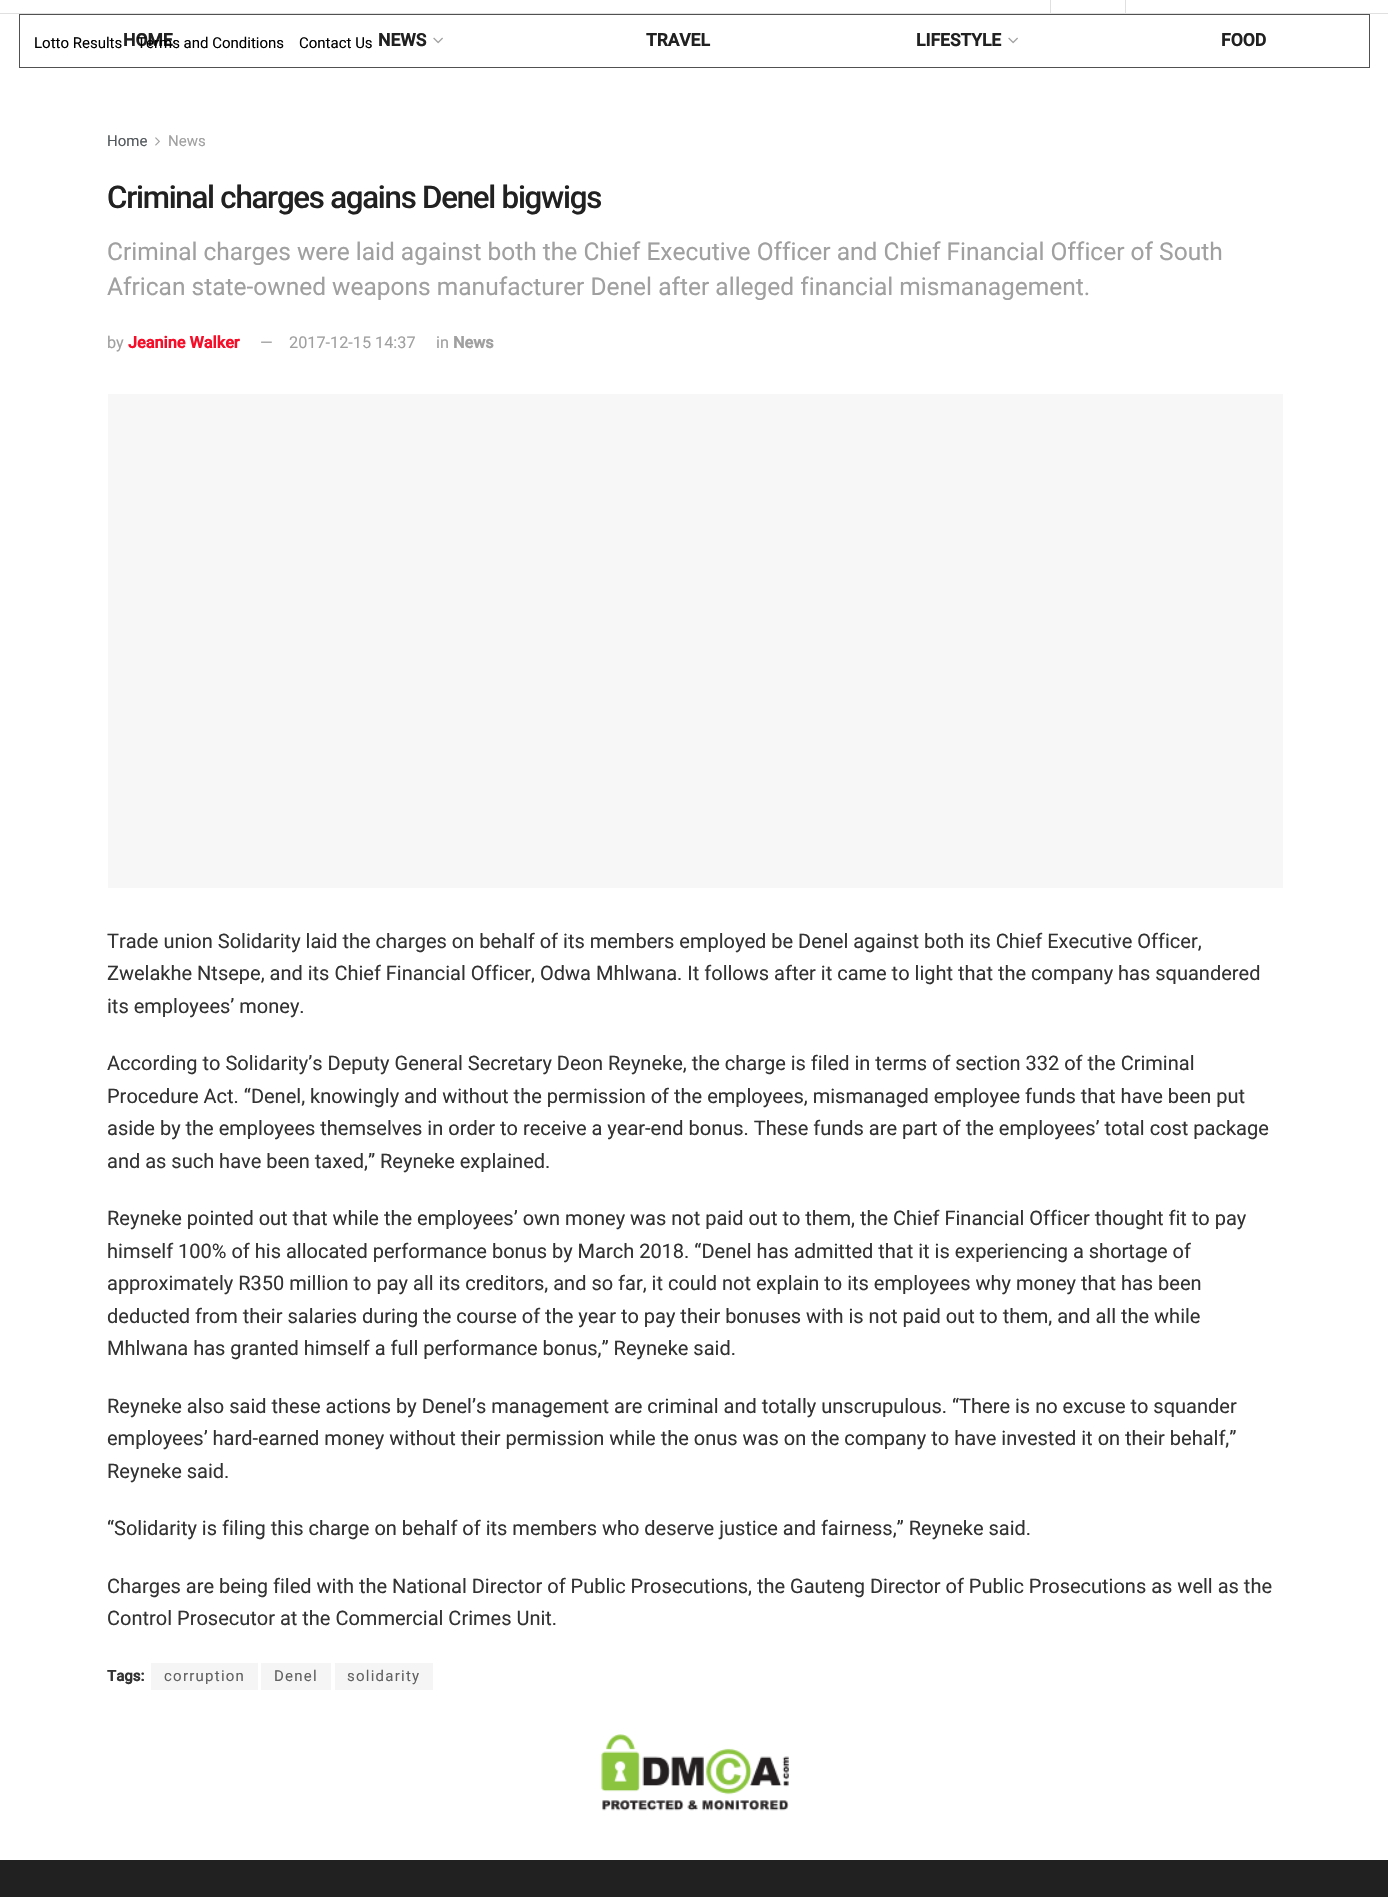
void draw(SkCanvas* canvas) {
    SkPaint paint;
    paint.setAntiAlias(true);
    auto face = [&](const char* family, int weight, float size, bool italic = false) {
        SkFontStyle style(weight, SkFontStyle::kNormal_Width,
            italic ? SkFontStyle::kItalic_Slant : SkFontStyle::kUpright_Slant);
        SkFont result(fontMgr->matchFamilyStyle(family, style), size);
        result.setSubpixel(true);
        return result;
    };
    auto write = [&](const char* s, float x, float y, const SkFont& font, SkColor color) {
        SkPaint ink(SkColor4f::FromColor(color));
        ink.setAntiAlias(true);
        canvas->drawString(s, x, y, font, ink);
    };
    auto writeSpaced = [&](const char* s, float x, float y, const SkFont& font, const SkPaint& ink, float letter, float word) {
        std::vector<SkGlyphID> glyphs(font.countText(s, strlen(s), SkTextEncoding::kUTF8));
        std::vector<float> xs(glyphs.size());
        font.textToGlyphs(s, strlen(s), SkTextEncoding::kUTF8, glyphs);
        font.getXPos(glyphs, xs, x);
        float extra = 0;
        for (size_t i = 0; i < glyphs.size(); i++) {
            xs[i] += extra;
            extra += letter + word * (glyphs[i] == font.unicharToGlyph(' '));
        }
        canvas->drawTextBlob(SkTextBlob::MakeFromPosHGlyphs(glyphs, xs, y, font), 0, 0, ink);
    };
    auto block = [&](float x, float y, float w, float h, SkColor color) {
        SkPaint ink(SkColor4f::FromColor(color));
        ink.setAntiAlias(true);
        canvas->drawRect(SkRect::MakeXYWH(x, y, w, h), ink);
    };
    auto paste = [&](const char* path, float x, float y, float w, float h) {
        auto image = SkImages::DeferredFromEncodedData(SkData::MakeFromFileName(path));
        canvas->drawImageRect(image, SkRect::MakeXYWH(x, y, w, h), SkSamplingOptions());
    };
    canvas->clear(SK_ColorWHITE);
    paint.setStyle(SkPaint::kStroke_Style);
    paint.setStrokeWidth(1);
    paint.setColor(SkColorSetRGB(81, 81, 81));
    canvas->drawRect(SkRect::MakeXYWH(19.5f, 14.5f, 1350, 53), paint);
    auto kFont1 = face("Roboto", 700, 17.5f);
    write("HOME", 123, 46, kFont1, SkColorSetRGB(33, 33, 33));
    write("NEWS", 378, 46, kFont1, SkColorSetRGB(33, 33, 33));
    paste("pic1.png", 433, 37, 10, 7);
    write("TRAVEL", 646, 46, kFont1, SkColorSetRGB(33, 33, 33));
    write("LIFESTYLE", 916, 46, kFont1, SkColorSetRGB(33, 33, 33));
    paste("pic1.png", 1008, 37, 10, 7);
    write("FOOD", 1221, 46, kFont1, SkColorSetRGB(33, 33, 33));
    block(0, 13, 1388, 1, SkColorSetRGB(224, 224, 224));
    block(1050, 0, 1, 13, SkColorSetRGB(224, 224, 224));
    block(1125, 0, 1, 14, SkColorSetRGB(224, 224, 224));
    auto kFont2 = face("Roboto", 400, 15);
    write("Lotto Results", 34, 48, kFont2, SK_ColorBLACK);
    write("Terms and Conditions", 137, 48, kFont2, SK_ColorBLACK);
    write("Contact Us", 299, 48, kFont2, SK_ColorBLACK);
    write("Home", 107, 146, kFont2, SkColorSetRGB(83, 88, 92));
    paste("pic2.png", 155, 137, 5, 9);
    write("News", 168, 146, kFont2, SkColorSetRGB(160, 160, 160));
    auto kFont3 = face("Roboto", 500, 31.25f);
    paint.setStyle(SkPaint::kFill_Style);
    paint.setColor(SkColorSetRGB(33, 33, 33));
    writeSpaced("Criminal charges agains Denel bigwigs", 107, 208, kFont3, paint, -1.25f, 0);
    auto kFont4 = face("Roboto", 400, 24.5f);
    write("Criminal charges were laid against both the Chief Executive Officer and Chief Financial Officer of South", 107, 260, kFont4, SkColorSetRGB(160, 160, 160));
    write("African state-owned weapons manufacturer Denel after alleged financial mismanagement.", 107, 295, kFont4, SkColorSetRGB(160, 160, 160));
    auto kFont5 = face("Roboto", 400, 16.25f);
    write("by", 107, 348, kFont5, SkColorSetRGB(160, 160, 160));
    auto kFont6 = face("Roboto", 700, 16.25f);
    write("Jeanine Walker", 128, 348, kFont6, SkColorSetRGB(247, 13, 40));
    write("—", 260, 348, kFont5, SkColorSetRGB(160, 160, 160));
    write("2017-12-15 14:37", 289, 348, kFont5, SkColorSetRGB(160, 160, 160));
    write("in", 436, 348, kFont5, SkColorSetRGB(160, 160, 160));
    write("News", 453, 348, kFont6, SkColorSetRGB(160, 160, 160));
    block(108, 394, 1175, 494, SkColorSetRGB(247, 247, 247));
    auto kFont7 = face("Roboto", 400, 20);
    write("Trade union Solidarity laid the charges on behalf of its members employed be Denel against both its Chief Executive Officer,", 107, 948, kFont7, SkColorSetRGB(51, 51, 51));
    write("Zwelakhe Ntsepe, and its Chief Financial Officer, Odwa Mhlwana. It follows after it came to light that the company has squandered", 107, 980, kFont7, SkColorSetRGB(51, 51, 51));
    write("its employees’ money.", 107, 1013, kFont7, SkColorSetRGB(51, 51, 51));
    write("According to Solidarity’s Deputy General Secretary Deon Reyneke, the charge is filed in terms of section 332 of the Criminal", 107, 1070, kFont7, SkColorSetRGB(51, 51, 51));
    write("Procedure Act. “Denel, knowingly and without the permission of the employees, mismanaged employee funds that have been put", 107, 1103, kFont7, SkColorSetRGB(51, 51, 51));
    write("aside by the employees themselves in order to receive a year-end bonus. These funds are part of the employees’ total cost package", 107, 1135, kFont7, SkColorSetRGB(51, 51, 51));
    write("and as such have been taxed,” Reyneke explained.", 107, 1168, kFont7, SkColorSetRGB(51, 51, 51));
    write("Reyneke pointed out that while the employees’ own money was not paid out to them, the Chief Financial Officer thought fit to pay", 107, 1225, kFont7, SkColorSetRGB(51, 51, 51));
    write("himself 100% of his allocated performance bonus by March 2018. “Denel has admitted that it is experiencing a shortage of", 107, 1258, kFont7, SkColorSetRGB(51, 51, 51));
    write("approximately R350 million to pay all its creditors, and so far, it could not explain to its employees why money that has been", 107, 1290, kFont7, SkColorSetRGB(51, 51, 51));
    write("deducted from their salaries during the course of the year to pay their bonuses with is not paid out to them, and all the while", 107, 1323, kFont7, SkColorSetRGB(51, 51, 51));
    write("Mhlwana has granted himself a full performance bonus,” Reyneke said.", 107, 1355, kFont7, SkColorSetRGB(51, 51, 51));
    write("Reyneke also said these actions by Denel’s management are criminal and totally unscrupulous. “There is no excuse to squander", 107, 1413, kFont7, SkColorSetRGB(51, 51, 51));
    write("employees’ hard-earned money without their permission while the onus was on the company to have invested it on their behalf,”", 107, 1445, kFont7, SkColorSetRGB(51, 51, 51));
    write("Reyneke said.", 107, 1478, kFont7, SkColorSetRGB(51, 51, 51));
    write("“Solidarity is filing this charge on behalf of its members who deserve justice and fairness,” Reyneke said.", 107, 1535, kFont7, SkColorSetRGB(51, 51, 51));
    write("Charges are being filed with the National Director of Public Prosecutions, the Gauteng Director of Public Prosecutions as well as the", 107, 1593, kFont7, SkColorSetRGB(51, 51, 51));
    write("Control Prosecutor at the Commercial Crimes Unit.", 107, 1625, kFont7, SkColorSetRGB(51, 51, 51));
    auto kFont8 = face("Roboto", 700, 15);
    write("Tags:", 107, 1681, kFont8, SkColorSetRGB(51, 51, 51));
    block(151, 1663, 107, 27, SkColorSetRGB(245, 245, 245));
    paint.setColor(SkColorSetRGB(97, 97, 97));
    writeSpaced("corruption", 164, 1681, kFont2, paint, 1.25f, 0);
    block(261, 1663, 70, 27, SkColorSetRGB(245, 245, 245));
    writeSpaced("Denel", 274, 1681, kFont2, paint, 1.25f, 0);
    block(335, 1663, 98, 27, SkColorSetRGB(245, 245, 245));
    writeSpaced("solidarity", 347, 1681, kFont2, paint, 1.25f, 0);
    paste("pic3.png", 601, 1734, 188, 77);
    block(0, 1860, 1388, 37, SkColorSetRGB(33, 33, 33));
}
